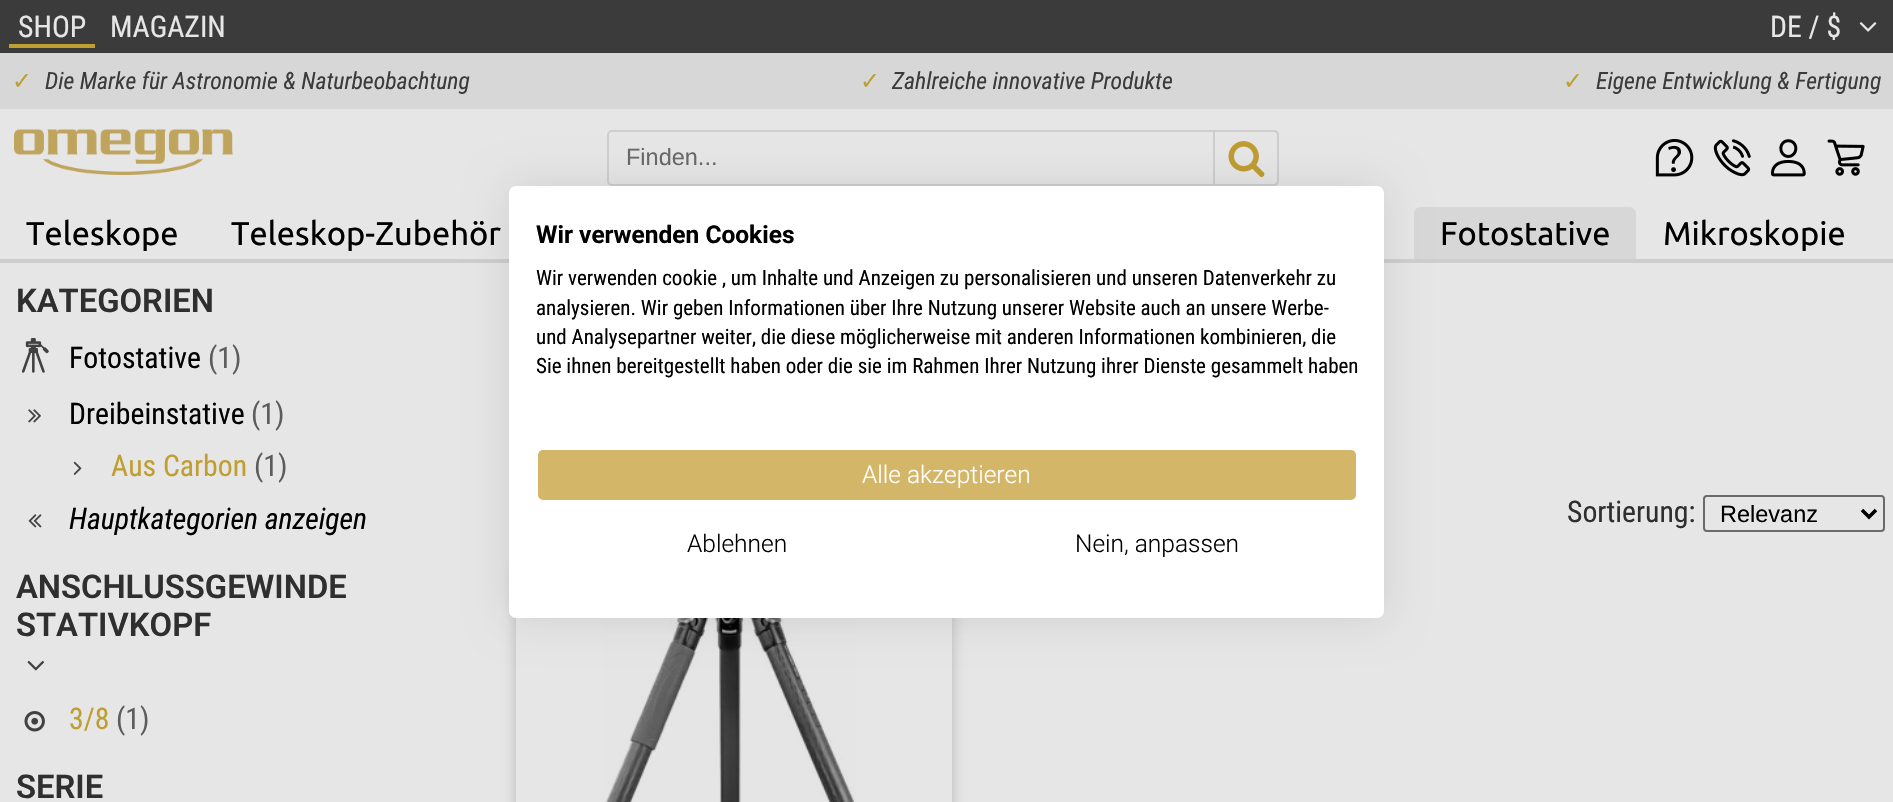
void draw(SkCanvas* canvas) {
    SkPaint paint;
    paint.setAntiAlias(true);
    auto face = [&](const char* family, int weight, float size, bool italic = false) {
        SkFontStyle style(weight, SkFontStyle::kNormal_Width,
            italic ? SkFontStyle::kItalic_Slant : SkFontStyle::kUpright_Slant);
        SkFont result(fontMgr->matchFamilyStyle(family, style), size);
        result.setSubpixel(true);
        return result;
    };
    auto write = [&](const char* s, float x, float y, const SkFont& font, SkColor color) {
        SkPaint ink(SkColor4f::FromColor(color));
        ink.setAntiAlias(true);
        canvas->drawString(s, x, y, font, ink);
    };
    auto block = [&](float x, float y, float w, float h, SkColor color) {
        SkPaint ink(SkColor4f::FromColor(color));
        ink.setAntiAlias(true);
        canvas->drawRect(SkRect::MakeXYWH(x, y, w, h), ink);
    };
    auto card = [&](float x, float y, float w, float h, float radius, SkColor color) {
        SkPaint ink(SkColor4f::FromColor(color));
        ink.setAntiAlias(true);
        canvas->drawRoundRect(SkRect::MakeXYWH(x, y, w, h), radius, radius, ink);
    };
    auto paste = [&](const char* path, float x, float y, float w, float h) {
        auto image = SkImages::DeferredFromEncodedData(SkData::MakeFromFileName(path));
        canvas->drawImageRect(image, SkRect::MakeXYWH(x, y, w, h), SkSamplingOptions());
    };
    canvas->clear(SkColorSetRGB(230, 230, 230));
    block(0, 0, 1893, 53, SkColorSetRGB(59, 59, 60));
    auto kFont1 = face("Roboto Condensed", 400, 29.75f);
    write("SHOP", 18, 37, kFont1, SkColorSetRGB(230, 230, 230));
    block(9, 44, 86, 4, SkColorSetRGB(191, 158, 50));
    write("MAGAZIN", 110, 37, kFont1, SkColorSetRGB(230, 230, 230));
    write("DE / $", 1770, 37, kFont1, SkColorSetRGB(230, 230, 230));
    paste("pic1.png", 1859, 22, 18, 10);
    block(0, 53, 1893, 56, SkColorSetRGB(215, 215, 215));
    auto kFont2 = face("DejaVu Sans", 400, 23.75f);
    write("✓", 12, 89, kFont2, SkColorSetRGB(191, 158, 50));
    auto kFont3 = face("Roboto Condensed", 400, 23.75f, true);
    write("Die Marke für Astronomie & Naturbeobachtung", 45, 89, kFont3, SkColorSetRGB(59, 59, 60));
    write("✓", 860, 89, kFont2, SkColorSetRGB(191, 158, 50));
    write("Zahlreiche innovative Produkte", 892, 89, kFont3, SkColorSetRGB(59, 59, 60));
    write("✓", 1563, 89, kFont2, SkColorSetRGB(191, 158, 50));
    write("Eigene Entwicklung & Fertigung", 1596, 89, kFont3, SkColorSetRGB(59, 59, 60));
    paste("pic2.png", 14, 129, 219, 46);
    paint.setStyle(SkPaint::kStroke_Style);
    paint.setStrokeWidth(2);
    paint.setColor(SkColorSetRGB(206, 206, 206));
    canvas->drawRoundRect(SkRect::MakeXYWH(608, 131, 670, 54), 4, 4, paint);
    auto kFont4 = face("Liberation Sans", 400, 23.5f);
    write("Finden...", 626, 165, kFont4, SkColorSetRGB(105, 105, 105));
    paint.setStyle(SkPaint::kFill_Style);
    paint.setColor(SkColorSetRGB(230, 230, 230));
    canvas->drawPath(SkPathBuilder().moveTo(1214, 131).lineTo(1274, 131).cubicTo(1276, 131, 1278, 133, 1278, 135).lineTo(1278, 181).cubicTo(1278, 183, 1276, 185, 1274, 185).lineTo(1214, 185).close().detach(), paint);
    paint.setStyle(SkPaint::kStroke_Style);
    paint.setColor(SkColorSetRGB(206, 206, 206));
    canvas->drawPath(SkPathBuilder().moveTo(1214, 131).lineTo(1274, 131).cubicTo(1276, 131, 1278, 133, 1278, 135).lineTo(1278, 181).cubicTo(1278, 183, 1276, 185, 1274, 185).lineTo(1214, 185).close().detach(), paint);
    paste("pic3.png", 1228, 141, 37, 36);
    paste("pic4.png", 1655, 139, 39, 38);
    paste("pic5.png", 1713, 139, 38, 38);
    paste("pic6.png", 1770, 139, 36, 38);
    paste("pic7.png", 1827, 139, 38, 37);
    auto kFont5 = face("Ubuntu", 400, 32.75f);
    write("Teleskope", 26, 245, kFont5, SK_ColorBLACK);
    write("Teleskop-Zubehör", 231, 245, kFont5, SK_ColorBLACK);
    paint.setStyle(SkPaint::kFill_Style);
    paint.setColor(SkColorSetRGB(215, 215, 215));
    canvas->drawPath(SkPathBuilder().moveTo(1421, 207).lineTo(1629, 207).cubicTo(1633, 207, 1636, 210, 1636, 214).lineTo(1636, 259).lineTo(1414, 259).lineTo(1414, 214).cubicTo(1414, 210, 1417, 207, 1421, 207).close().detach(), paint);
    write("Fotostative", 1440, 245, kFont5, SK_ColorBLACK);
    write("Mikroskopie", 1663, 245, kFont5, SK_ColorBLACK);
    block(0, 259, 1893, 4, SkColorSetRGB(206, 206, 206));
    auto kFont6 = face("Roboto", 600, 32.75f);
    write("KATEGORIEN", 16, 312, kFont6, SkColorSetRGB(47, 47, 47));
    paste("pic8.png", 21, 338, 28, 35);
    write("Fotostative", 69, 368, kFont1, SK_ColorBLACK);
    write("(1)", 208, 368, kFont1, SkColorSetRGB(92, 92, 92));
    paste("pic9.png", 28, 409, 13, 14);
    write("Dreibeinstative", 69, 424, kFont1, SK_ColorBLACK);
    write("(1)", 251, 424, kFont1, SkColorSetRGB(92, 92, 92));
    paste("pic10.png", 73, 461, 9, 14);
    write("Aus Carbon", 111, 476, kFont1, SkColorSetRGB(191, 158, 50));
    write("(1)", 254, 476, kFont1, SkColorSetRGB(92, 92, 92));
    paste("pic11.png", 28, 514, 14, 14);
    auto kFont7 = face("Roboto Condensed", 400, 29.75f, true);
    write("Hauptkategorien anzeigen", 69, 529, kFont7, SK_ColorBLACK);
    write("ANSCHLUSSGEWINDE", 16, 598, kFont6, SkColorSetRGB(47, 47, 47));
    write("STATIVKOPF", 16, 636, kFont6, SkColorSetRGB(47, 47, 47));
    paste("pic12.png", 27, 660, 17, 11);
    paste("pic13.png", 24, 711, 21, 21);
    write("3/8", 69, 729, kFont1, SkColorSetRGB(191, 158, 50));
    write("(1)", 116, 729, kFont1, SkColorSetRGB(92, 92, 92));
    write("SERIE", 16, 798, kFont6, SkColorSetRGB(47, 47, 47));
    write("Sortierung:", 1567, 522, kFont1, SkColorSetRGB(47, 47, 47));
    paint.setStyle(SkPaint::kStroke_Style);
    paint.setColor(SkColorSetRGB(106, 106, 106));
    canvas->drawRoundRect(SkRect::MakeXYWH(1704, 496, 180, 35), 3, 3, paint);
    paint.setStrokeWidth(3.5f);
    paint.setColor(SK_ColorBLACK);
    canvas->drawPath(SkPathBuilder().moveTo(1862, 510).lineTo(1869, 517).lineTo(1876, 510).detach(), paint);
    write("Relevanz", 1720, 522, kFont4, SK_ColorBLACK);
    canvas->save();
    canvas->clipPath(SkPathBuilder(SkPathFillType::kEvenOdd).moveTo(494, 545).lineTo(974, 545).lineTo(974, 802).lineTo(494, 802).close().moveTo(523, 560).lineTo(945, 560).cubicTo(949, 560, 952, 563, 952, 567).lineTo(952, 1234).cubicTo(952, 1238, 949, 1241, 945, 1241).lineTo(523, 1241).cubicTo(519, 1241, 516, 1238, 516, 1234).lineTo(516, 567).cubicTo(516, 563, 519, 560, 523, 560).close().detach(), true);
    paint.setStyle(SkPaint::kFill_Style);
    paint.setColor(SkColorSetARGB(51, 0, 0, 0));
    paint.setMaskFilter(SkMaskFilter::MakeBlur(kNormal_SkBlurStyle, 7));
    canvas->drawRoundRect(SkRect::MakeXYWH(516, 567, 436, 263), 7, 7, paint);
    paint.setMaskFilter(nullptr);
    canvas->restore();
    paste("pic14.png", 602, 618, 254, 184);
    paint.setColor(SkColorSetARGB(26, 0, 0, 0));
    paint.setMaskFilter(SkMaskFilter::MakeBlur(kNormal_SkBlurStyle, 21));
    canvas->drawRoundRect(SkRect::MakeXYWH(509, 186, 875, 432), 7, 7, paint);
    paint.setMaskFilter(nullptr);
    card(509, 186, 875, 432, 7, SK_ColorWHITE);
    auto kFont8 = face("Roboto", 700, 24.5f);
    write("Wir verwenden Cookies", 536, 243, kFont8, SK_ColorBLACK);
    auto kFont9 = face("Roboto Condensed", 400, 21);
    write("Wir verwenden cookie , um Inhalte und Anzeigen zu personalisieren und unseren Datenverkehr zu", 536, 285, kFont9, SK_ColorBLACK);
    write("analysieren. Wir geben Informationen über Ihre Nutzung unserer Website auch an unsere Werbe-", 536, 315, kFont9, SK_ColorBLACK);
    write("und Analysepartner weiter, die diese möglicherweise mit anderen Informationen kombinieren, die", 536, 344, kFont9, SK_ColorBLACK);
    write("Sie ihnen bereitgestellt haben oder die sie im Rahmen Ihrer Nutzung ihrer Dienste gesammelt haben", 536, 373, kFont9, SK_ColorBLACK);
    paint.setColor(SkColorSetRGB(212, 182, 104));
    canvas->drawRoundRect(SkRect::MakeXYWH(537, 449, 820, 52), 6, 6, paint);
    paint.setStyle(SkPaint::kStroke_Style);
    paint.setStrokeWidth(2);
    paint.setColor(SK_ColorWHITE);
    canvas->drawRoundRect(SkRect::MakeXYWH(537, 449, 820, 52), 6, 6, paint);
    auto kFont10 = face("Roboto", 300, 24.5f);
    write("Alle akzeptieren", 862, 483, kFont10, SK_ColorWHITE);
    write("Ablehnen", 687, 552, kFont10, SK_ColorBLACK);
    write("Nein, anpassen", 1075, 552, kFont10, SK_ColorBLACK);
}
